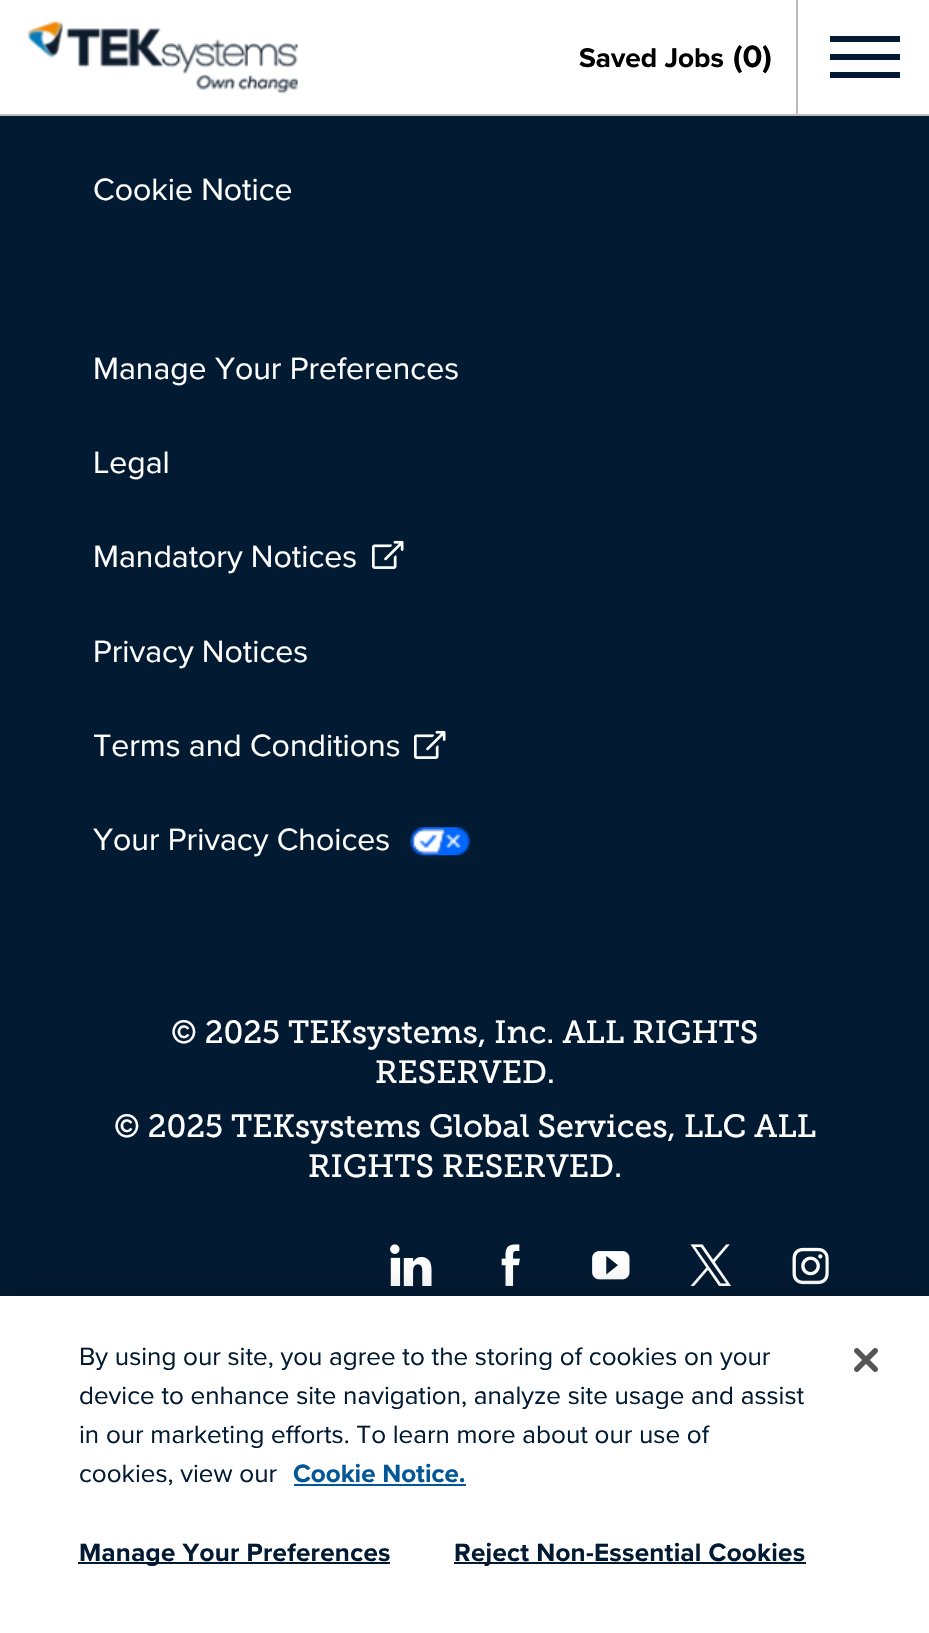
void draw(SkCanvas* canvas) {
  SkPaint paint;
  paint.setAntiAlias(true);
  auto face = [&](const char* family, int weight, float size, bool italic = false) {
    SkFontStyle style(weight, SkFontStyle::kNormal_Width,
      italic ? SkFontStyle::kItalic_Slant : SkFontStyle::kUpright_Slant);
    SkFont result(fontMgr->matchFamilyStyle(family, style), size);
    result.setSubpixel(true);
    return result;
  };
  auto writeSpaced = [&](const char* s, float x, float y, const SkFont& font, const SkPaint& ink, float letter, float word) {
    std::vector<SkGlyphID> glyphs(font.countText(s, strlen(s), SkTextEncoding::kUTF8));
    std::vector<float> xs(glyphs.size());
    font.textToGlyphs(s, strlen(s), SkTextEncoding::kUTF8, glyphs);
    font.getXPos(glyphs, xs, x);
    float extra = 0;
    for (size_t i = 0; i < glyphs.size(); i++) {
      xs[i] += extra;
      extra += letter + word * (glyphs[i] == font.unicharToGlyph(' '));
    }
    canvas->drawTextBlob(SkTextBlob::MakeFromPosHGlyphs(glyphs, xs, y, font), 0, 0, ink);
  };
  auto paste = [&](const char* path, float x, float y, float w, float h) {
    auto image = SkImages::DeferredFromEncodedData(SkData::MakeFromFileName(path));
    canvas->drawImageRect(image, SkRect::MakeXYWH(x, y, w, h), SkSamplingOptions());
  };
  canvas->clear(0xff021a32);
  paint.setColor(0xffffffff);
  canvas->drawRect(SkRect::MakeXYWH(0, 0, 929, 114), paint);
  paint.setColor(0xffbbbbbb);
  canvas->drawRect(SkRect::MakeXYWH(0, 114, 929, 2), paint);
  paste("img/1.png", 27, 21, 271, 73);
  {
    const struct { float x, y, w, h; SkColor color; } items[] = {
      {796, 0, 2, 114, 0xffbbbbbb},
      {830, 36, 70, 6, 0xff021a32},
      {830, 54, 70, 6, 0xff021a32},
      {830, 72, 70, 6, 0xff021a32},
    };
    for (auto [x, y, w, h, color] : items) {
      paint.setColor(color);
      canvas->drawRect(SkRect::MakeXYWH(x, y, w, h), paint);
    }
  }
  paste("img/2.png", 372, 540, 32, 29);
  paste("img/2.png", 414, 730, 32, 29);
  paste("img/3.png", 410, 827, 60, 29);
  paste("img/4.png", 390, 1244, 42, 43);
  paste("img/5.png", 501, 1244, 19, 42);
  paste("img/6.png", 592, 1251, 38, 29);
  paste("img/7.png", 690, 1244, 41, 42);
  paste("img/8.png", 792, 1247, 37, 38);
  paint.setColor(0x33000000);
  paint.setMaskFilter(SkMaskFilter::MakeBlur(kNormal_SkBlurStyle, 18));
  canvas->drawRect(SkRect::MakeXYWH(0, 1296, 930, 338), paint);
  paint.setMaskFilter(nullptr);
  {
    const struct { float x, y, w, h; SkColor color; } items[] = {
      {0, 1296, 929, 337, 0xffffffff},
      {294, 1484, 172, 2, 0xff035797},
      {78, 1562, 312, 2, 0xff021a32},
      {454, 1562, 352, 2, 0xff021a32},
    };
    for (auto [x, y, w, h, color] : items) {
      paint.setColor(color);
      canvas->drawRect(SkRect::MakeXYWH(x, y, w, h), paint);
    }
  }
  paste("img/9.png", 854, 1348, 24, 24);
  auto f0 = face("Proxima Nova", 700, 28);
  paint.setColor(0xff000000);
  canvas->drawString("Saved Jobs", 579, 67, f0, paint);
  auto f1 = face("Proxima Nova", 700, 32);
  canvas->drawString("(0)", 733, 67, f1, paint);
  auto f2 = face("Proxima Nova", 400, 32);
  paint.setColor(0xffffffff);
  {
    const struct { const char* s; float x, y; } items[] = {
      {"Cookie Notice", 93, 200},
      {"Manage Your Preferences", 93, 379},
      {"Legal", 93, 473},
      {"Mandatory Notices", 93, 567},
      {"Privacy Notices", 93, 662},
      {"Terms and Conditions", 93, 756},
      {"Your Privacy Choices", 93, 850},
    };
    for (auto [s, x, y] : items) {
      canvas->drawString(s, x, y, f2, paint);
    }
  }
  auto f3 = face("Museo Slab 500", 400, 32);
  {
    const struct { const char* s; float x, y; } items[] = {
      {"© 2025 TEKsystems, Inc. ALL RIGHTS", 171, 1043},
      {"RESERVED.", 375, 1083},
      {"© 2025 TEKsystems Global Services, LLC ALL", 114, 1137},
      {"RIGHTS RESERVED.", 308, 1177},
    };
    for (auto [s, x, y] : items) {
      canvas->drawString(s, x, y, f3, paint);
    }
  }
  auto f4 = face("Proxima Nova", 400, 26);
  paint.setColor(0xff021a32);
  {
    const struct { const char* s; float x, y; } items[] = {
      {"By using our site, you agree to the storing of cookies on your", 79, 1365},
      {"device to enhance site navigation, analyze site usage and assist", 79, 1404},
      {"in our marketing efforts. To learn more about our use of", 79, 1443},
      {"cookies, view our", 79, 1482},
    };
    for (auto [s, x, y] : items) {
      canvas->drawString(s, x, y, f4, paint);
    }
  }
  auto f5 = face("Proxima Nova", 700, 26);
  paint.setColor(0xff035797);
  canvas->drawString("Cookie Notice.", 293, 1482, f5, paint);
  paint.setColor(0xff021a32);
  writeSpaced("Manage Your Preferences", 79, 1561, f5, paint, 0.25f, 0);
  writeSpaced("Reject Non-Essential Cookies", 454, 1561, f5, paint, 0.25f, 0);
}
